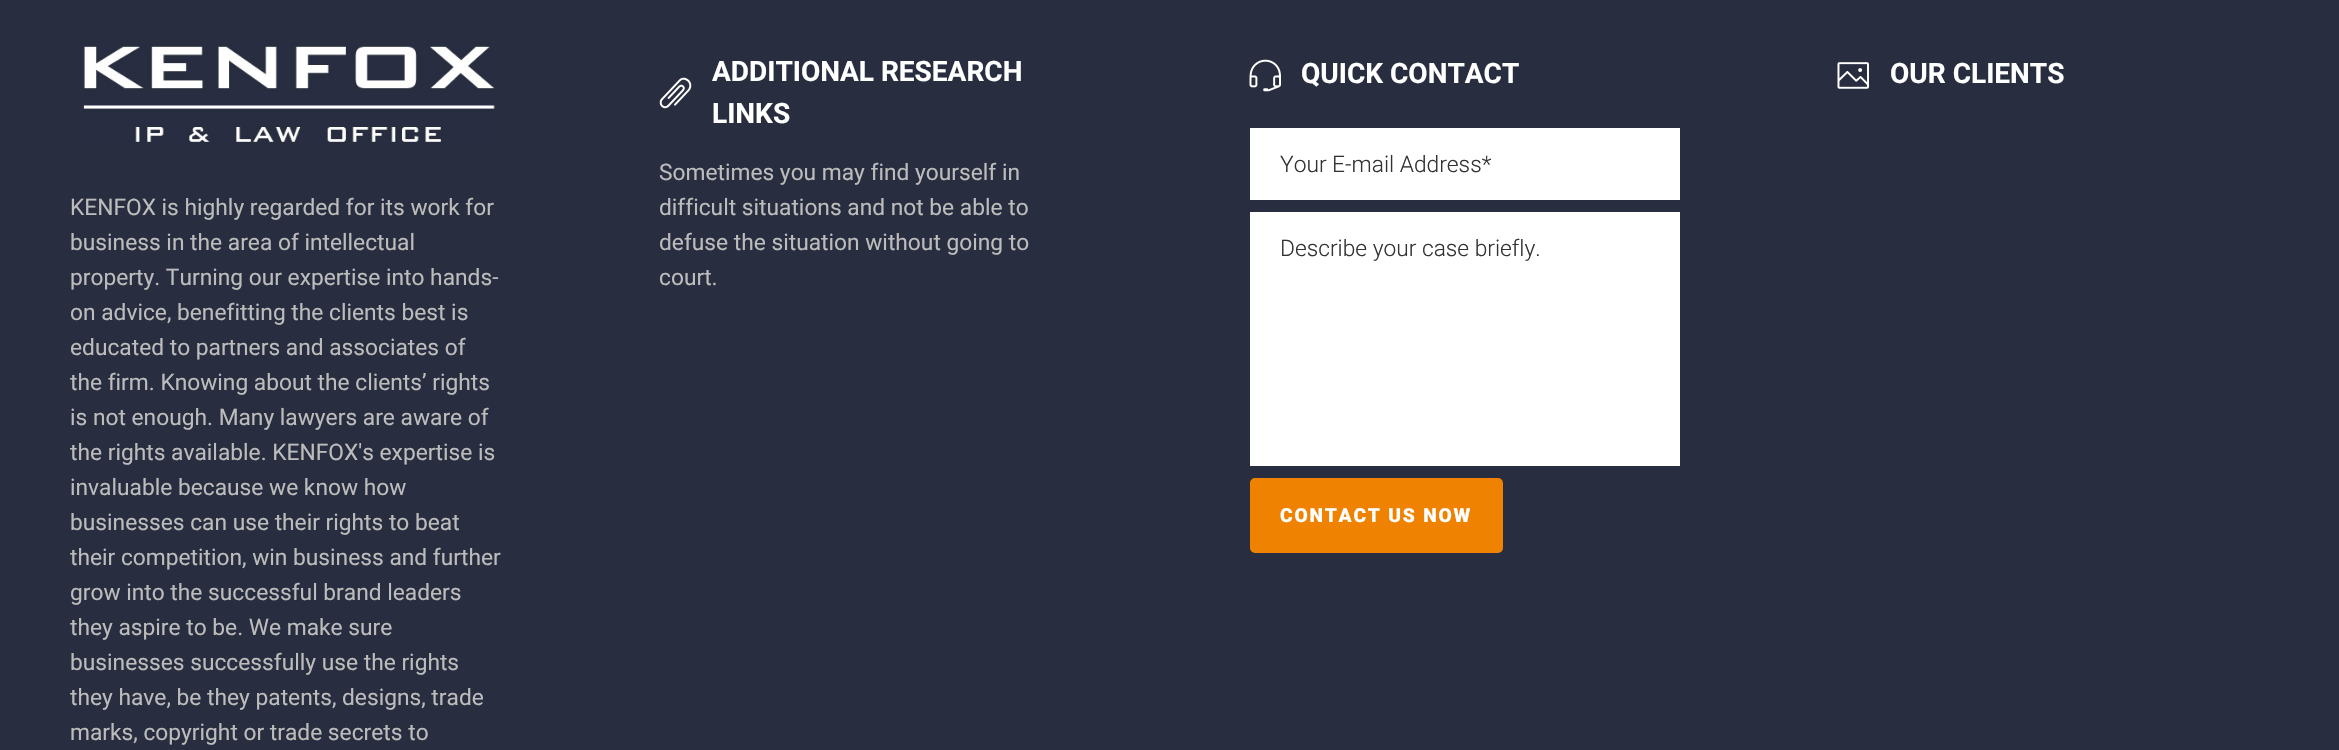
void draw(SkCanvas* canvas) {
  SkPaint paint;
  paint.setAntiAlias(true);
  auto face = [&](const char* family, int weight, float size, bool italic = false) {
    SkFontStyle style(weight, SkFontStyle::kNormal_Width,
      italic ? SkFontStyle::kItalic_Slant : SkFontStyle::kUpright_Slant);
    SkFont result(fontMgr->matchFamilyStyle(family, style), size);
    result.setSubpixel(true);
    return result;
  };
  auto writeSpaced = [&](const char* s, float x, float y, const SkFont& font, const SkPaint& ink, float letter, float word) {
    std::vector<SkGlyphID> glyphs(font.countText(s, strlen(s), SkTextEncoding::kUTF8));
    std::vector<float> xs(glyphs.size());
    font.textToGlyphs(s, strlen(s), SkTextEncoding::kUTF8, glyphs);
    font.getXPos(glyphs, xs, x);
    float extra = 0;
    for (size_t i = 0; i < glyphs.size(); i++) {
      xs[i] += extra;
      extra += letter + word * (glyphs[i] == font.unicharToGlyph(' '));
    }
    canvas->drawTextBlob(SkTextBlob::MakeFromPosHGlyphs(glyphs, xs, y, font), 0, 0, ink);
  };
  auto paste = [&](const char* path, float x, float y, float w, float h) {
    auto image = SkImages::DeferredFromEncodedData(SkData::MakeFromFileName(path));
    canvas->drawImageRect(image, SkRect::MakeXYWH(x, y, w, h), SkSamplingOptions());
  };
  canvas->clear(0xff282e3f);
  paste("img/1.png", 659, 77, 33, 32);
  paste("img/2.png", 1249, 59, 32, 33);
  paint.setColor(0xffffffff);
  canvas->drawRect(SkRect::MakeXYWH(1250, 128, 430, 72), paint);
  canvas->drawRect(SkRect::MakeXYWH(1250, 212, 430, 254), paint);
  paint.setColor(0xffef8200);
  canvas->drawRoundRect(SkRect::MakeXYWH(1251, 479, 251, 73), 4, 4, paint);
  paint.setStroke(true);
  paint.setStrokeWidth(2);
  canvas->drawRoundRect(SkRect::MakeXYWH(1251, 479, 251, 73), 4, 4, paint);
  paste("img/3.png", 1837, 62, 32, 27);
  paste("img/4.png", 83, 43, 412, 104);
  auto f0 = face("Roboto", 700, 28);
  paint.setStroke(false);
  paint.setColor(0xffffffff);
  canvas->drawString("ADDITIONAL RESEARCH", 712, 81, f0, paint);
  canvas->drawString("LINKS", 712, 123, f0, paint);
  auto f1 = face("Roboto", 400, 22.75f);
  paint.setColor(0xffbcbcbc);
  {
    const struct { const char* s; float x, y; } items[] = {
      {"Sometimes you may find yourself in", 659, 180},
      {"difficult situations and not be able to", 659, 215},
      {"defuse the situation without going to", 659, 250},
      {"court.", 659, 285},
    };
    for (auto [s, x, y] : items) {
      canvas->drawString(s, x, y, f1, paint);
    }
  }
  paint.setColor(0xffffffff);
  canvas->drawString("QUICK CONTACT", 1301, 83, f0, paint);
  auto f2 = face("Roboto", 300, 22.75f);
  paint.setColor(0xff333333);
  canvas->drawString("Your E-mail Address*", 1280, 172, f2, paint);
  canvas->drawString("Describe your case briefly.", 1280, 256, f2, paint);
  auto f3 = face("Roboto", 900, 19.25f);
  paint.setColor(0xffffffff);
  writeSpaced("CONTACT US NOW", 1280, 522, f3, paint, 1.75f, 0);
  canvas->drawString("OUR CLIENTS", 1890, 83, f0, paint);
  paint.setColor(0xffbcbcbc);
  {
    const struct { const char* s; float x, y; } items[] = {
      {"KENFOX is highly regarded for its work for", 70, 215},
      {"business in the area of intellectual", 70, 250},
      {"property. Turning our expertise into hands-", 70, 285},
      {"on advice, benefitting the clients best is", 70, 320},
      {"educated to partners and associates of", 70, 355},
      {"the firm. Knowing about the clients’ rights", 70, 390},
      {"is not enough. Many lawyers are aware of", 70, 425},
      {"the rights available. KENFOX's expertise is", 70, 460},
      {"invaluable because we know how", 70, 495},
      {"businesses can use their rights to beat", 70, 530},
      {"their competition, win business and further", 70, 565},
      {"grow into the successful brand leaders", 70, 600},
      {"they aspire to be. We make sure", 70, 635},
      {"businesses successfully use the rights", 70, 670},
      {"they have, be they patents, designs, trade", 70, 705},
      {"marks, copyright or trade secrets to", 70, 740},
    };
    for (auto [s, x, y] : items) {
      canvas->drawString(s, x, y, f1, paint);
    }
  }
}
